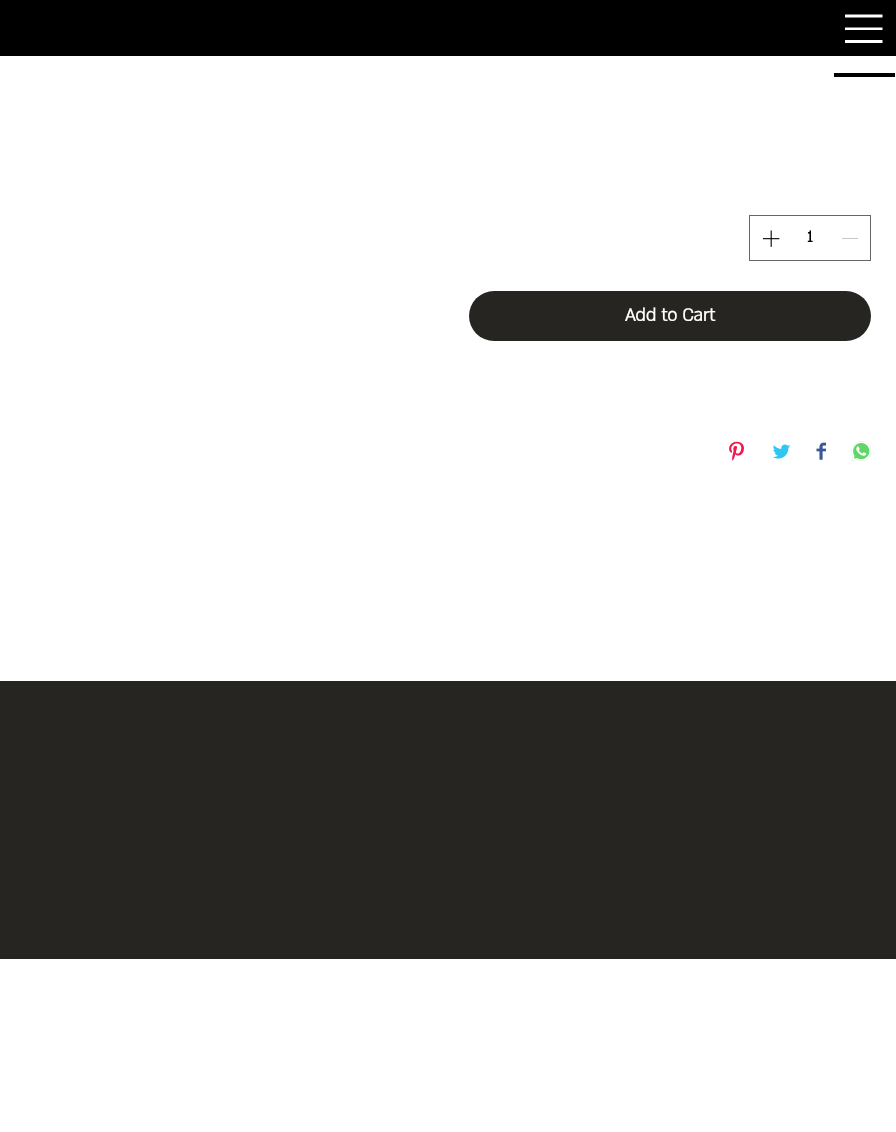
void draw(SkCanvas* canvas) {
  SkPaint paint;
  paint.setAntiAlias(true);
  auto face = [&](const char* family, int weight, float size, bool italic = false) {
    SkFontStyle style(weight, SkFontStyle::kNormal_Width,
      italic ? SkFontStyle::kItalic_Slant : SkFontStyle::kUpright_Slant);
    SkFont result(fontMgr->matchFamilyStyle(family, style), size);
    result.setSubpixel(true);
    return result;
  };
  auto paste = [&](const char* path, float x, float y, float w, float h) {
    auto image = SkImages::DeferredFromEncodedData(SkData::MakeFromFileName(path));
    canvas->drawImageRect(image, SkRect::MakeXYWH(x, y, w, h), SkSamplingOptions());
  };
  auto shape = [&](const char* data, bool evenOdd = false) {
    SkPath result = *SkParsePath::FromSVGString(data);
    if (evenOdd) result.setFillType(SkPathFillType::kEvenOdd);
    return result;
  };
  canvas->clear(0xffffffff);
  paint.setColor(0xff000000);
  canvas->drawRect(SkRect::MakeXYWH(0, 0, 896, 56), paint);
  canvas->save();
  canvas->clipRect(SkRect::MakeXYWH(834, 23, 61, 62));
  canvas->drawPath(shape("M895 35H832V30H895ZM895 56H832V51H895ZM895 77H832V73H895Z", true), paint);
  canvas->restore();
  paint.setColor(0xffffffff);
  canvas->drawPath(shape("M882.5 17.5H845V14.5H882.5ZM882.5 30H845V27.5H882.5ZM882.5 43H845V40H882.5Z", true), paint);
  paint.setStroke(true);
  paint.setStrokeWidth(1);
  paint.setColor(0xff666666);
  canvas->drawRect(SkRect::MakeXYWH(749.5f, 215.5f, 121, 45), paint);
  paste("img/1.png", 762, 230, 18, 17);
  paint.setStroke(false);
  paint.setColor(0xffc7c7c7);
  canvas->drawRect(SkRect::MakeXYWH(842, 238, 16, 1), paint);
  paint.setColor(0xff262522);
  canvas->drawRoundRect(SkRect::MakeXYWH(469, 291, 402, 50), 25, 25, paint);
  paste("img/2.png", 729, 441, 15, 20);
  paste("img/3.png", 773, 444, 18, 15);
  paste("img/4.png", 816, 442, 10, 18);
  paste("img/5.png", 851, 441, 20, 20);
  canvas->drawRect(SkRect::MakeXYWH(0, 681, 896, 278), paint);
  auto f0 = face("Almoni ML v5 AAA", 700, 18);
  paint.setColor(0xff000000);
  canvas->drawString("1", 807, 242, f0, paint);
  auto f1 = face("Almoni ML v5 AAA", 700, 20);
  paint.setColor(0xffffffff);
  canvas->drawString("Add to Cart", 625, 321, f1, paint);
}
